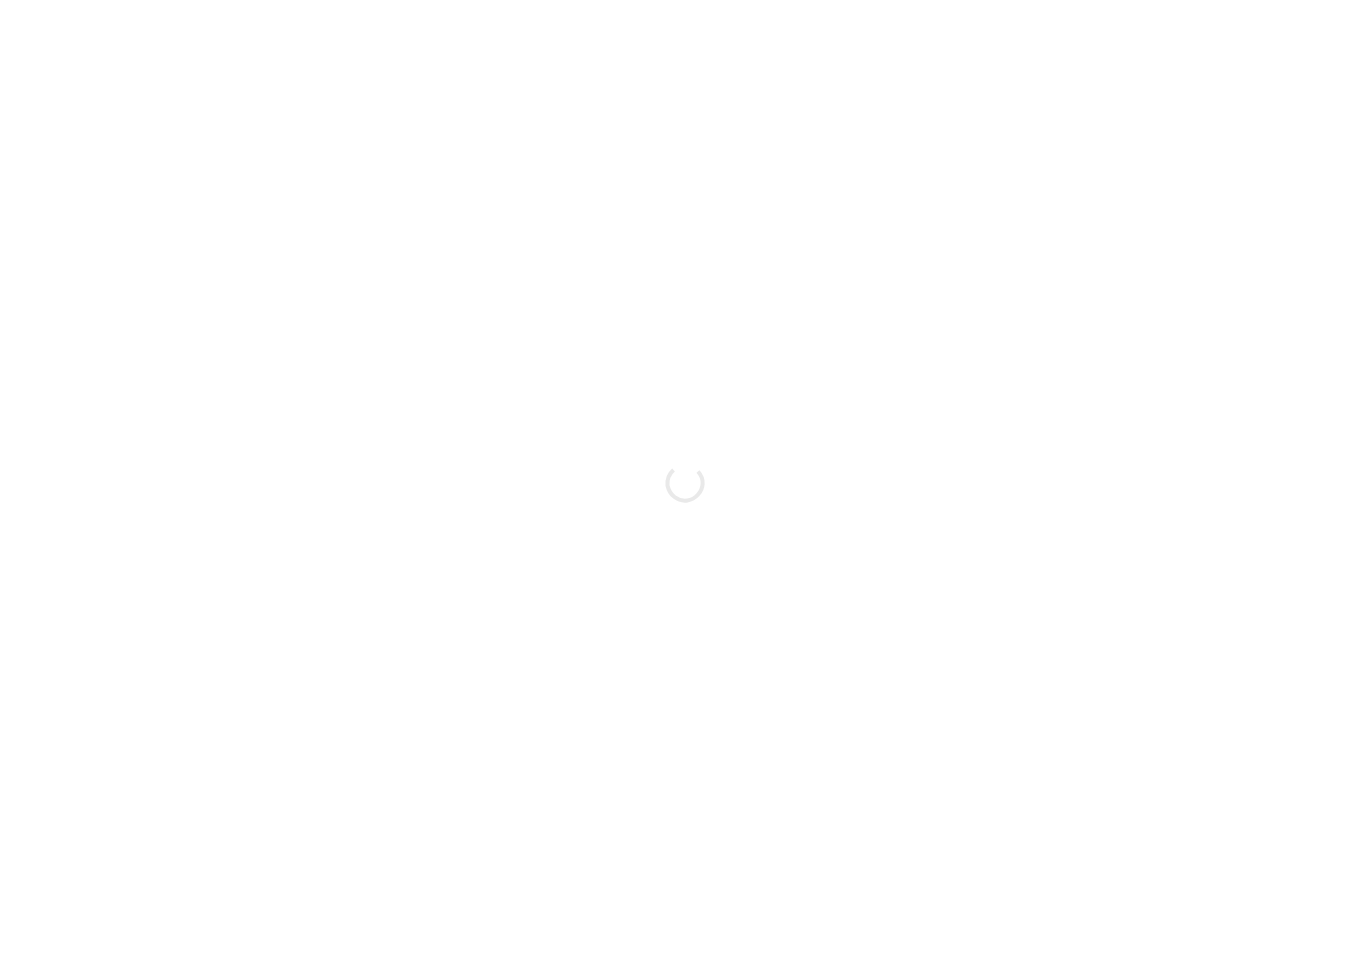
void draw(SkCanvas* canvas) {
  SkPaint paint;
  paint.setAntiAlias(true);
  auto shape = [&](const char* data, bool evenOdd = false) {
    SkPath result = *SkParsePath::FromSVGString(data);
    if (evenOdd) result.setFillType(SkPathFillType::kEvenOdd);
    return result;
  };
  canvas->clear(0xffffffff);
  paint.setStroke(true);
  paint.setStrokeWidth(4);
  paint.setColor(0xffe9e9e9);
  canvas->drawPath(shape("M698 471.5C712 487 691.5 509.5 674.5 497C671 494.5 668.5 490 667.5 485.5C667 479.5 669 474 673.5 470"), paint);
}
